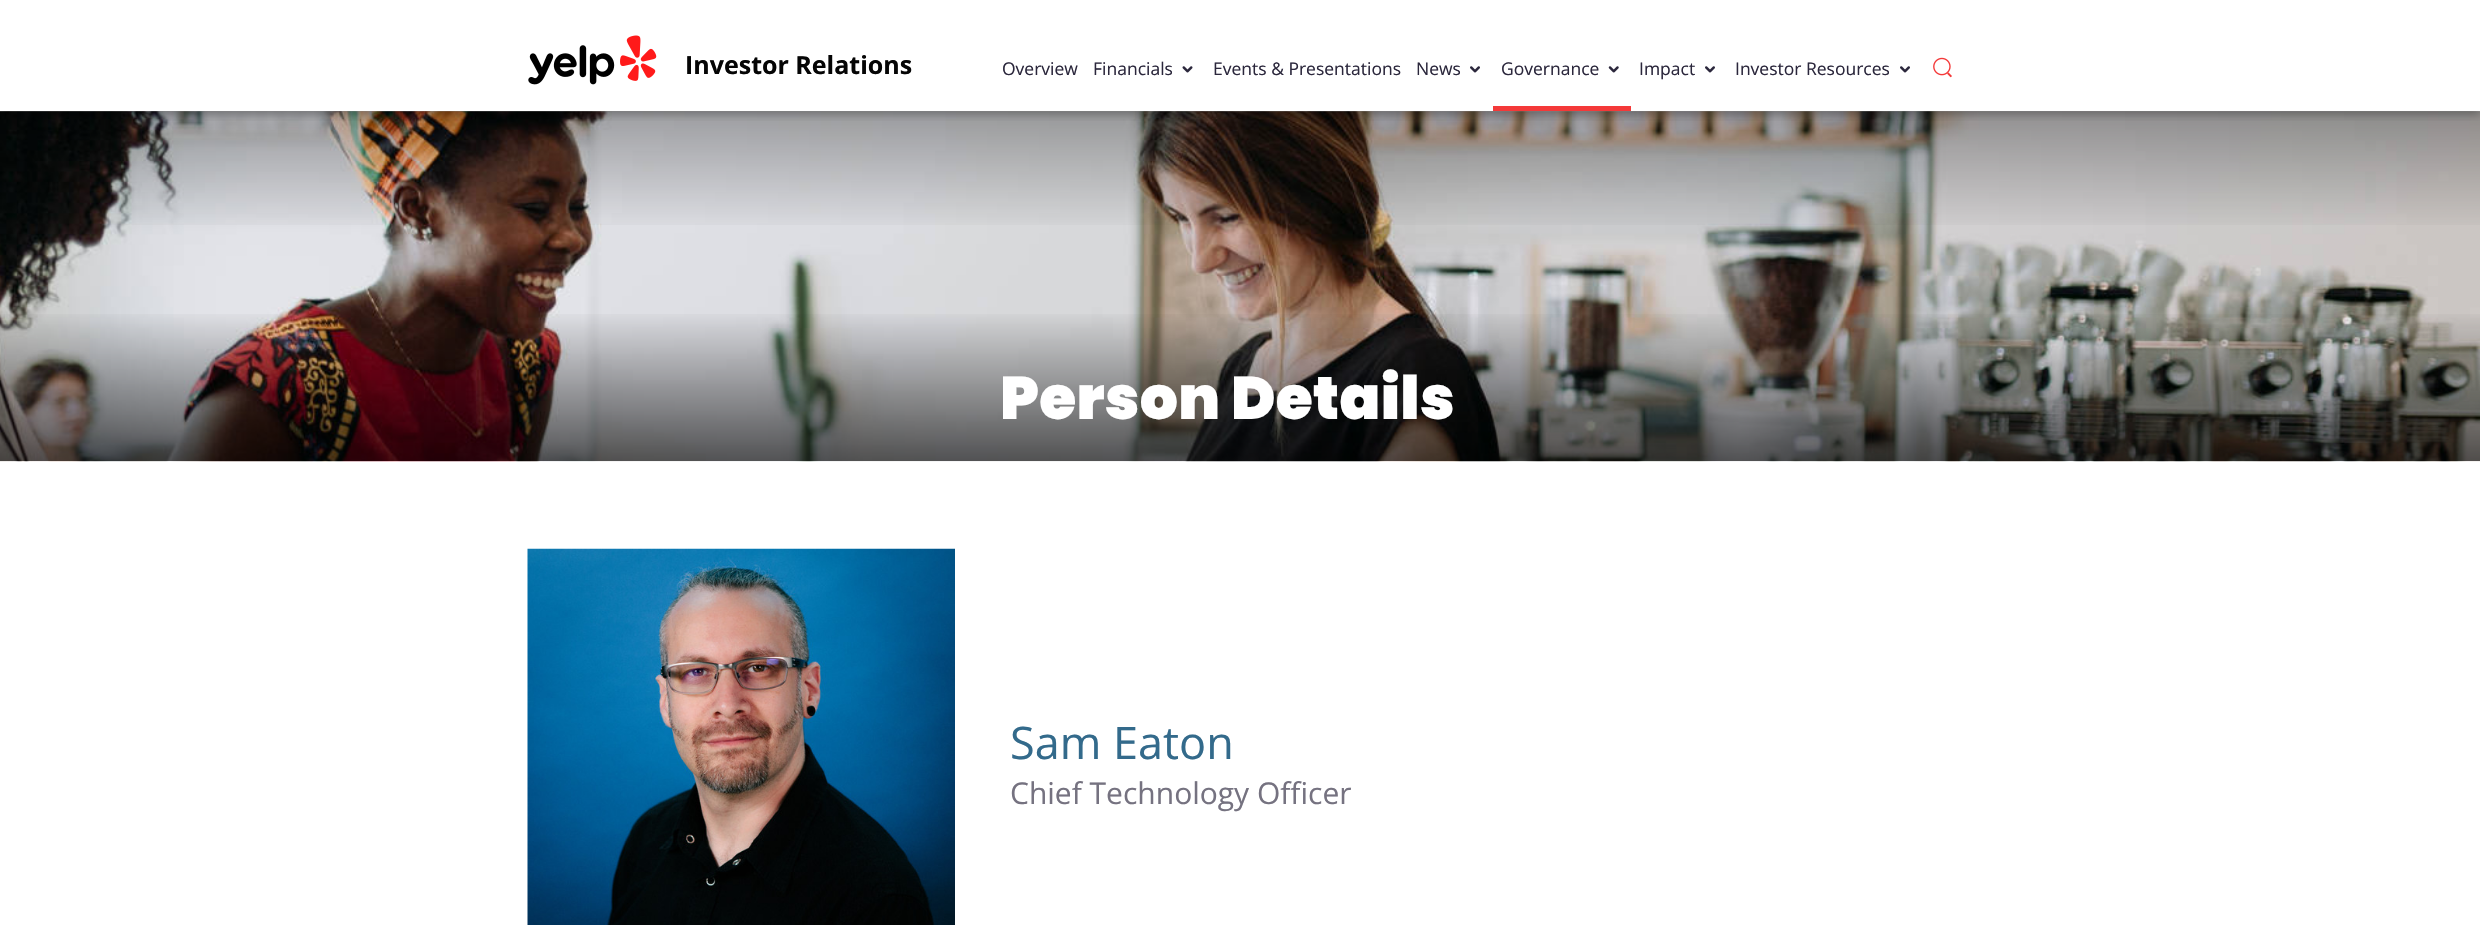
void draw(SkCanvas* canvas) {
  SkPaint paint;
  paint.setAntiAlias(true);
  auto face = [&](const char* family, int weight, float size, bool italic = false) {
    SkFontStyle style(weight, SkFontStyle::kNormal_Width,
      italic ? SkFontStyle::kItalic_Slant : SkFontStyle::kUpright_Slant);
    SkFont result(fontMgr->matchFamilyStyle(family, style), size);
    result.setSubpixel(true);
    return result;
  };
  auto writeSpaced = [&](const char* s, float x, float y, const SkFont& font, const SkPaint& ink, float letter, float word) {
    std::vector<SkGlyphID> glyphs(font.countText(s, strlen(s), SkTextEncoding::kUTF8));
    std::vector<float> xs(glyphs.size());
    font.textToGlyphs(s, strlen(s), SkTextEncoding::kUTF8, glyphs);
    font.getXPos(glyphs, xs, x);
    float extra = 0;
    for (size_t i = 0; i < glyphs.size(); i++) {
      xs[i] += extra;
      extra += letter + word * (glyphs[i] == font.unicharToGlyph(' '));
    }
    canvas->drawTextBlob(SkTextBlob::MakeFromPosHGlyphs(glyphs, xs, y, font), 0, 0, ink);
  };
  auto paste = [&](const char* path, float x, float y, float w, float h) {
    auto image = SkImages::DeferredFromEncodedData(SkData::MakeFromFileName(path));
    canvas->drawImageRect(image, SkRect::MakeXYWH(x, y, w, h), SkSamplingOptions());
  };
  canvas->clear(0xffffffff);
  paste("img/6.png", 0, 111, 2480, 351);
  {
    const SkColor colors[] = {0x00000000, 0x4d000000};
    const float stops[] = {0.69f, 1};
    const SkPoint ends[] = {{1228, 506}, {1228, 111}};
    paint.setShader(SkGradientShader::MakeLinear(ends, colors, stops, 2, SkTileMode::kClamp));
    paint.setAlpha(255);
  }
  canvas->drawRect(SkRect::MakeXYWH(0, 111, 2480, 114), paint);
  canvas->save();
  canvas->clipRect(SkRect::MakeXYWH(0, 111, 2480, 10));
  paint.setShader(nullptr);
  paint.setColor(0x4d000000);
  paint.setMaskFilter(SkMaskFilter::MakeBlur(kNormal_SkBlurStyle, 4.5f));
  canvas->drawRect(SkRect::MakeXYWH(0, 3, 2480, 111), paint);
  paint.setMaskFilter(nullptr);
  canvas->restore();
  paste("img/1.png", 528, 35, 129, 50);
  paste("img/2.png", 1182, 66, 11, 7);
  paste("img/3.png", 1470, 66, 10, 7);
  paint.setColor(0xfff43939);
  canvas->drawRect(SkRect::MakeXYWH(1493, 106, 138, 5), paint);
  paste("img/4.png", 1608, 66, 11, 7);
  paste("img/3.png", 1705, 66, 10, 7);
  paste("img/3.png", 1900, 66, 10, 7);
  paste("img/5.png", 1933, 57, 19, 21);
  {
    const SkColor colors[] = {0x00000000, 0xcc000000};
    const float stops[] = {0.5f, 1};
    const SkPoint ends[] = {{1228, 111}, {1228, 506}};
    paint.setShader(SkGradientShader::MakeLinear(ends, colors, stops, 2, SkTileMode::kClamp));
    paint.setAlpha(255);
  }
  canvas->drawRect(SkRect::MakeXYWH(0, 314, 2480, 147), paint);
  paste("img/7.png", 527, 548, 428, 377);
  auto f0 = face("Open Sans", 700, 25);
  paint.setShader(nullptr);
  paint.setColor(0xff050505);
  canvas->drawString("Investor Relations", 685, 74, f0, paint);
  auto f1 = face("Open Sans", 400, 17.5f);
  paint.setColor(0xff2b273c);
  {
    const struct { const char* s; float x, y; } items[] = {
      {"Overview", 1002, 75},
      {"Financials", 1093, 75},
      {"Events & Presentations", 1213, 75},
      {"News", 1416, 75},
      {"Governance", 1501, 75},
      {"Impact", 1639, 75},
      {"Investor Resources", 1735, 75},
    };
    for (auto [s, x, y] : items) {
      canvas->drawString(s, x, y, f1, paint);
    }
  }
  auto f2 = face("Poppins", 900, 60);
  paint.setColor(0xffffffff);
  writeSpaced("Person Details", 1000, 419, f2, paint, 0.3f, 0);
  auto f3 = face("Open Sans", 400, 45);
  paint.setColor(0xff336a8b);
  canvas->drawString("Sam Eaton", 1010, 759, f3, paint);
  auto f4 = face("Open Sans", 400, 30);
  paint.setColor(0xff757280);
  canvas->drawString("Chief Technology Officer", 1010, 804, f4, paint);
}
